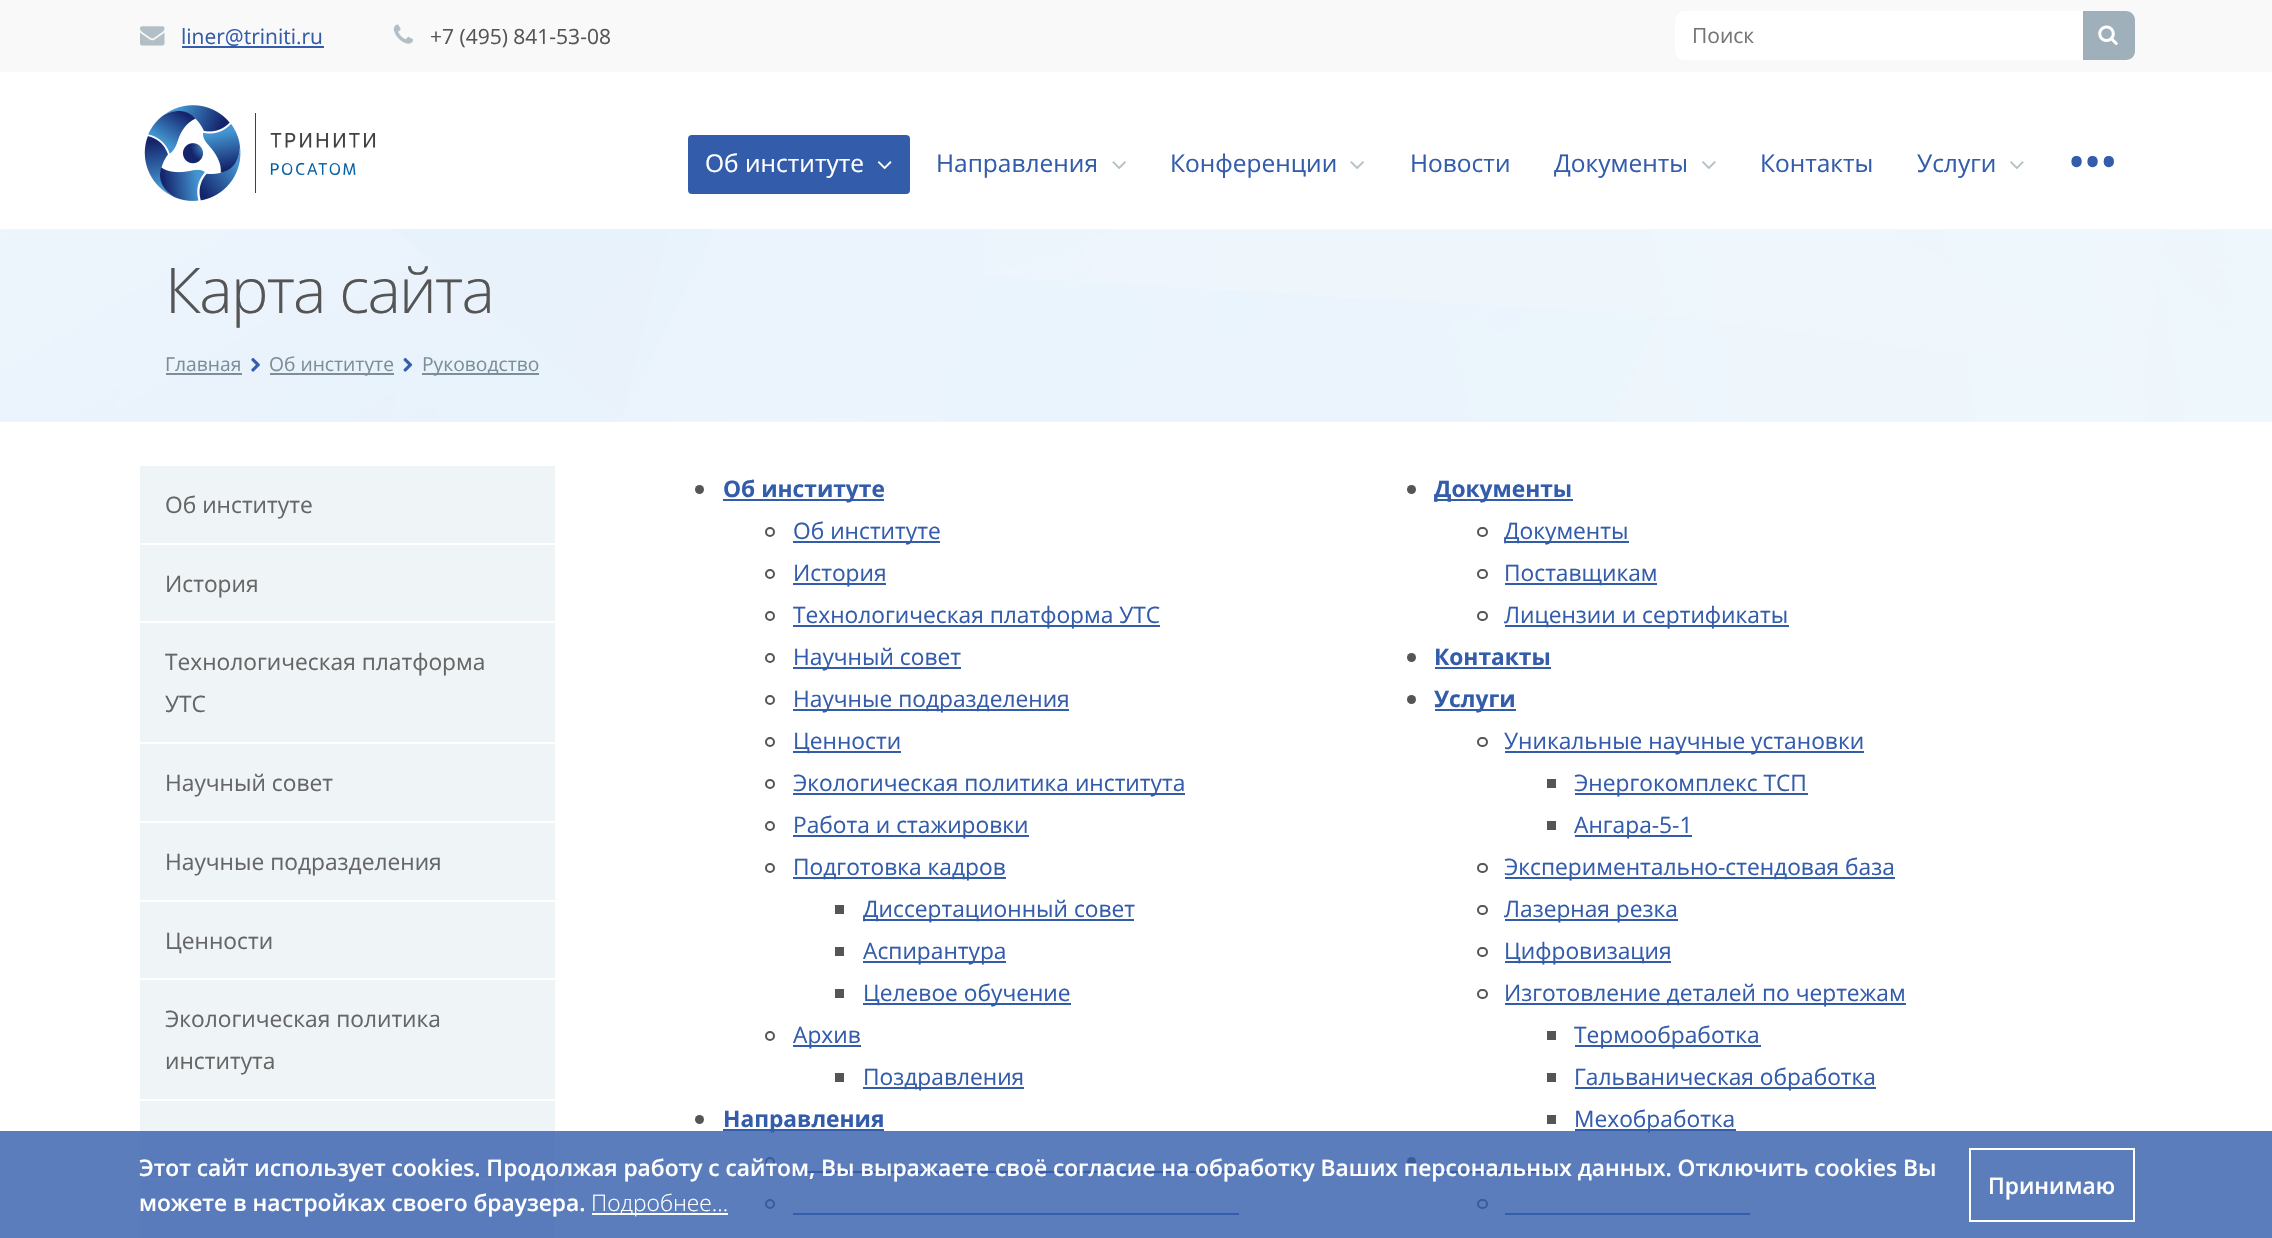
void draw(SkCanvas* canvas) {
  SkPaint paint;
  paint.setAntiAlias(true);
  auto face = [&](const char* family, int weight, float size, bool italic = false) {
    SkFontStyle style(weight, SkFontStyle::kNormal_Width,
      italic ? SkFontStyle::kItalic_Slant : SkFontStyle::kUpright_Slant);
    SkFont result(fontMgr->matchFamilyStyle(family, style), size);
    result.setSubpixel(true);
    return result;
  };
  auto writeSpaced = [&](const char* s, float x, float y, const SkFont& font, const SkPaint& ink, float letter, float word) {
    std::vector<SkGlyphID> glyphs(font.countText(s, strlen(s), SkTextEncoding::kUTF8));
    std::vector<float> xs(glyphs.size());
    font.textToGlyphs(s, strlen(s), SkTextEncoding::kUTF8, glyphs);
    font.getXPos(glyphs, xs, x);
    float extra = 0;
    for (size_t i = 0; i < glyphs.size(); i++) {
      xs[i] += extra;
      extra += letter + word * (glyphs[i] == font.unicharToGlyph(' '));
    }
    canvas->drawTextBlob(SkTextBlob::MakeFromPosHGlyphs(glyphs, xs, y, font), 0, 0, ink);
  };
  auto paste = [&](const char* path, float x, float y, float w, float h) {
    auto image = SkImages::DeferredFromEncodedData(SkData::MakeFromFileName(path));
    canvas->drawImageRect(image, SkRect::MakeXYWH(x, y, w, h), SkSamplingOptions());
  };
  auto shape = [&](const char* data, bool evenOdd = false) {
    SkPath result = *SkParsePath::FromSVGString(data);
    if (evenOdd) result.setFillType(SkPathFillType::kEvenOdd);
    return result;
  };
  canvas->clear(0xffffffff);
  paint.setColor(0xfff9f9f9);
  canvas->drawRect(SkRect::MakeXYWH(0, 0, 2272, 72), paint);
  paste("img/1.png", 140, 26, 25, 20);
  paint.setColor(0xff335cab);
  canvas->drawRect(SkRect::MakeXYWH(182, 46, 142, 2), paint);
  paste("img/2.png", 393, 24, 20, 20);
  paint.setColor(0xffffffff);
  canvas->drawRoundRect(SkRect::MakeXYWH(1675, 11, 460, 49), 9, 9, paint);
  paint.setColor(0xffa0b0ba);
  canvas->drawPath(shape("M2083 11H2126C2131 11 2135 15 2135 20V51C2135 56 2131 60 2126 60H2083Z"), paint);
  paste("img/3.png", 2098, 25, 20, 20);
  paste("img/4.png", 144, 105, 232, 96);
  paint.setColor(0xff335cab);
  canvas->drawRoundRect(SkRect::MakeXYWH(688, 135, 222, 59), 4, 4, paint);
  paste("img/5.png", 877, 161, 15, 9);
  paste("img/6.png", 1112, 161, 14, 8);
  paste("img/6.png", 1350, 161, 14, 8);
  paste("img/7.png", 1702, 161, 14, 8);
  paste("img/7.png", 2010, 161, 14, 8);
  paint.setColor(0xfff8fbfc);
  canvas->drawRect(SkRect::MakeXYWH(0, 229, 2272, 193), paint);
  paste("img/8.png", 0, 229, 2272, 193);
  paint.setColor(0xff7c8e9a);
  canvas->drawRect(SkRect::MakeXYWH(166, 373, 76, 2), paint);
  paste("img/9.png", 251, 358, 9, 14);
  canvas->drawRect(SkRect::MakeXYWH(270, 373, 124, 2), paint);
  paste("img/10.png", 403, 358, 10, 14);
  canvas->drawRect(SkRect::MakeXYWH(422, 373, 117, 2), paint);
  paint.setColor(0xff555555);
  canvas->drawCircle(699.5f, 489.5f, 4.5f, paint);
  paint.setColor(0xff335cab);
  canvas->drawRect(SkRect::MakeXYWH(723, 499, 161, 2), paint);
  paint.setStroke(true);
  paint.setStrokeWidth(2);
  paint.setColor(0xff555555);
  canvas->drawCircle(770, 532, 4, paint);
  paint.setStroke(false);
  paint.setColor(0xff335cab);
  canvas->drawRect(SkRect::MakeXYWH(793, 541, 147, 2), paint);
  paint.setStroke(true);
  paint.setColor(0xff555555);
  canvas->drawCircle(770, 574, 4, paint);
  paint.setStroke(false);
  paint.setColor(0xff335cab);
  canvas->drawRect(SkRect::MakeXYWH(793, 583, 93, 2), paint);
  paint.setStroke(true);
  paint.setColor(0xff555555);
  canvas->drawCircle(770, 616, 4, paint);
  paint.setStroke(false);
  paint.setColor(0xff335cab);
  canvas->drawRect(SkRect::MakeXYWH(793, 625, 367, 2), paint);
  paint.setStroke(true);
  paint.setColor(0xff555555);
  canvas->drawCircle(770, 658, 4, paint);
  paint.setStroke(false);
  paint.setColor(0xff335cab);
  canvas->drawRect(SkRect::MakeXYWH(793, 667, 168, 2), paint);
  paint.setStroke(true);
  paint.setColor(0xff555555);
  canvas->drawCircle(770, 700, 4, paint);
  paint.setStroke(false);
  paint.setColor(0xff335cab);
  canvas->drawRect(SkRect::MakeXYWH(793, 709, 276, 2), paint);
  paint.setStroke(true);
  paint.setColor(0xff555555);
  canvas->drawCircle(770, 742, 4, paint);
  paint.setStroke(false);
  paint.setColor(0xff335cab);
  canvas->drawRect(SkRect::MakeXYWH(793, 751, 108, 2), paint);
  paint.setStroke(true);
  paint.setColor(0xff555555);
  canvas->drawCircle(770, 784, 4, paint);
  paint.setStroke(false);
  paint.setColor(0xff335cab);
  canvas->drawRect(SkRect::MakeXYWH(793, 793, 392, 2), paint);
  paint.setStroke(true);
  paint.setColor(0xff555555);
  canvas->drawCircle(770, 826, 4, paint);
  paint.setStroke(false);
  paint.setColor(0xff335cab);
  canvas->drawRect(SkRect::MakeXYWH(793, 835, 236, 2), paint);
  paint.setStroke(true);
  paint.setColor(0xff555555);
  canvas->drawCircle(770, 868, 4, paint);
  paint.setStroke(false);
  {
    const struct { float x, y, w, h; SkColor color; } items[] = {
      {793, 877, 213, 2, 0xff335cab},
      {835, 905, 9, 9, 0xff555555},
      {863, 919, 271, 2, 0xff335cab},
      {835, 947, 9, 9, 0xff555555},
      {863, 961, 143, 2, 0xff335cab},
      {835, 989, 9, 9, 0xff555555},
      {863, 1003, 208, 2, 0xff335cab},
    };
    for (auto [x, y, w, h, color] : items) {
      paint.setColor(color);
      canvas->drawRect(SkRect::MakeXYWH(x, y, w, h), paint);
    }
  }
  paint.setStroke(true);
  paint.setColor(0xff555555);
  canvas->drawCircle(770, 1036, 4, paint);
  paint.setStroke(false);
  {
    const struct { float x, y, w, h; SkColor color; } items[] = {
      {793, 1045, 68, 2, 0xff335cab},
      {835, 1073, 9, 9, 0xff555555},
      {863, 1087, 161, 2, 0xff335cab},
    };
    for (auto [x, y, w, h, color] : items) {
      paint.setColor(color);
      canvas->drawRect(SkRect::MakeXYWH(x, y, w, h), paint);
    }
  }
  paint.setColor(0xff555555);
  canvas->drawCircle(699.5f, 1119.5f, 4.5f, paint);
  paint.setColor(0xff335cab);
  canvas->drawRect(SkRect::MakeXYWH(723, 1129, 161, 2), paint);
  paint.setStroke(true);
  paint.setColor(0xff555555);
  canvas->drawCircle(770, 1162, 4, paint);
  paint.setStroke(false);
  paint.setColor(0xff335cab);
  canvas->drawRect(SkRect::MakeXYWH(793, 1171, 467, 2), paint);
  paint.setStroke(true);
  paint.setColor(0xff555555);
  canvas->drawCircle(770, 1204, 4, paint);
  paint.setStroke(false);
  paint.setColor(0xff335cab);
  canvas->drawRect(SkRect::MakeXYWH(793, 1213, 446, 2), paint);
  paint.setColor(0xff555555);
  canvas->drawCircle(1411.5f, 489.5f, 4.5f, paint);
  paint.setColor(0xff335cab);
  canvas->drawRect(SkRect::MakeXYWH(1435, 499, 138, 2), paint);
  paint.setStroke(true);
  paint.setColor(0xff555555);
  canvas->drawRoundRect(SkRect::MakeXYWH(1478, 528, 9, 8), 4, 4, paint);
  paint.setStroke(false);
  paint.setColor(0xff335cab);
  canvas->drawRect(SkRect::MakeXYWH(1505, 541, 124, 2), paint);
  paint.setStroke(true);
  paint.setColor(0xff555555);
  canvas->drawRoundRect(SkRect::MakeXYWH(1478, 570, 9, 8), 4, 4, paint);
  paint.setStroke(false);
  paint.setColor(0xff335cab);
  canvas->drawRect(SkRect::MakeXYWH(1505, 583, 152, 2), paint);
  paint.setStroke(true);
  paint.setColor(0xff555555);
  canvas->drawRoundRect(SkRect::MakeXYWH(1478, 612, 9, 8), 4, 4, paint);
  paint.setStroke(false);
  paint.setColor(0xff335cab);
  canvas->drawRect(SkRect::MakeXYWH(1505, 625, 284, 2), paint);
  paint.setColor(0xff555555);
  canvas->drawCircle(1411.5f, 657.5f, 4.5f, paint);
  paint.setColor(0xff335cab);
  canvas->drawRect(SkRect::MakeXYWH(1435, 667, 116, 2), paint);
  paint.setColor(0xff555555);
  canvas->drawCircle(1411.5f, 699.5f, 4.5f, paint);
  paint.setColor(0xff335cab);
  canvas->drawRect(SkRect::MakeXYWH(1435, 709, 81, 2), paint);
  paint.setStroke(true);
  paint.setColor(0xff555555);
  canvas->drawRoundRect(SkRect::MakeXYWH(1478, 738, 9, 8), 4, 4, paint);
  paint.setStroke(false);
  {
    const struct { float x, y, w, h; SkColor color; } items[] = {
      {1505, 751, 359, 2, 0xff335cab},
      {1547, 779, 9, 9, 0xff555555},
      {1575, 793, 233, 2, 0xff335cab},
      {1547, 821, 9, 9, 0xff555555},
      {1575, 835, 117, 2, 0xff335cab},
    };
    for (auto [x, y, w, h, color] : items) {
      paint.setColor(color);
      canvas->drawRect(SkRect::MakeXYWH(x, y, w, h), paint);
    }
  }
  paint.setStroke(true);
  paint.setColor(0xff555555);
  canvas->drawRoundRect(SkRect::MakeXYWH(1478, 864, 9, 8), 4, 4, paint);
  paint.setStroke(false);
  paint.setColor(0xff335cab);
  canvas->drawRect(SkRect::MakeXYWH(1505, 877, 390, 2), paint);
  paint.setStroke(true);
  paint.setColor(0xff555555);
  canvas->drawRoundRect(SkRect::MakeXYWH(1478, 906, 9, 8), 4, 4, paint);
  paint.setStroke(false);
  paint.setColor(0xff335cab);
  canvas->drawRect(SkRect::MakeXYWH(1505, 919, 173, 2), paint);
  paint.setStroke(true);
  paint.setColor(0xff555555);
  canvas->drawRoundRect(SkRect::MakeXYWH(1478, 948, 9, 8), 4, 4, paint);
  paint.setStroke(false);
  paint.setColor(0xff335cab);
  canvas->drawRect(SkRect::MakeXYWH(1505, 961, 166, 2), paint);
  paint.setStroke(true);
  paint.setColor(0xff555555);
  canvas->drawRoundRect(SkRect::MakeXYWH(1478, 990, 9, 8), 4, 4, paint);
  paint.setStroke(false);
  {
    const struct { float x, y, w, h; SkColor color; } items[] = {
      {1505, 1003, 401, 2, 0xff335cab},
      {1547, 1031, 9, 9, 0xff555555},
      {1575, 1045, 186, 2, 0xff335cab},
      {1547, 1073, 9, 9, 0xff555555},
      {1575, 1087, 301, 2, 0xff335cab},
      {1547, 1115, 9, 9, 0xff555555},
      {1575, 1129, 161, 2, 0xff335cab},
    };
    for (auto [x, y, w, h, color] : items) {
      paint.setColor(color);
      canvas->drawRect(SkRect::MakeXYWH(x, y, w, h), paint);
    }
  }
  paint.setColor(0xff555555);
  canvas->drawCircle(1411.5f, 1161.5f, 4.5f, paint);
  paint.setColor(0xff335cab);
  canvas->drawRect(SkRect::MakeXYWH(1435, 1171, 133, 2), paint);
  paint.setStroke(true);
  paint.setColor(0xff555555);
  canvas->drawRoundRect(SkRect::MakeXYWH(1478, 1200, 9, 8), 4, 4, paint);
  paint.setStroke(false);
  {
    const struct { float x, y, w, h; SkColor color; } items[] = {
      {1505, 1213, 245, 2, 0xff335cab},
      {140, 466, 415, 772, 0xffeff5f7},
      {140, 543, 415, 2, 0xffffffff},
      {140, 621, 415, 2, 0xffffffff},
      {140, 742, 415, 2, 0xffffffff},
      {140, 821, 415, 2, 0xffffffff},
      {140, 900, 415, 2, 0xffffffff},
      {140, 978, 415, 2, 0xffffffff},
      {140, 1099, 415, 2, 0xffffffff},
      {140, 1178, 415, 2, 0xffffffff},
    };
    for (auto [x, y, w, h, color] : items) {
      paint.setColor(color);
      canvas->drawRect(SkRect::MakeXYWH(x, y, w, h), paint);
    }
  }
  auto f0 = face("Open Sans", 400, 21);
  paint.setColor(0xff335cab);
  canvas->drawString("liner@triniti.ru", 181, 44, f0, paint);
  paint.setColor(0xff555555);
  canvas->drawString("+7 (495) 841-53-08", 430, 44, f0, paint);
  paint.setColor(0xff757575);
  canvas->drawString("Поиск", 1692, 43, f0, paint);
  auto f1 = face("Open Sans", 400, 24.5f);
  paint.setColor(0xffffffff);
  canvas->drawString("Об институте", 705, 172, f1, paint);
  paint.setColor(0xff335cab);
  {
    const struct { const char* s; float x, y; } items[] = {
      {"Направления", 936, 172},
      {"Конференции", 1170, 172},
      {"Новости", 1410, 172},
      {"Документы", 1554, 172},
      {"Контакты", 1760, 172},
      {"Услуги", 1917, 172},
    };
    for (auto [s, x, y] : items) {
      canvas->drawString(s, x, y, f1, paint);
    }
  }
  auto f2 = face("Open Sans", 400, 88);
  writeSpaced("...", 2065, 166, f2, paint, -7, 0);
  auto f3 = face("Open Sans", 300, 63);
  paint.setColor(0xff555555);
  writeSpaced("Карта сайта", 165, 313, f3, paint, -1.75f, 0);
  auto f4 = face("Open Sans", 400, 19.25f);
  paint.setColor(0xff7c8e9a);
  {
    const struct { const char* s; float x, y; } items[] = {
      {"Главная", 165, 371},
      {"Об институте", 269, 371},
      {"Руководство", 422, 371},
    };
    for (auto [s, x, y] : items) {
      canvas->drawString(s, x, y, f4, paint);
    }
  }
  auto f5 = face("Open Sans", 700, 22.75f);
  paint.setColor(0xff335cab);
  canvas->drawString("Об институте", 723, 497, f5, paint);
  auto f6 = face("Open Sans", 400, 22.75f);
  {
    const struct { const char* s; float x, y; } items[] = {
      {"Об институте", 793, 539},
      {"История", 793, 581},
      {"Технологическая платформа УТС", 793, 623},
      {"Научный совет", 793, 665},
      {"Научные подразделения", 793, 707},
      {"Ценности", 793, 749},
      {"Экологическая политика института", 793, 791},
      {"Работа и стажировки", 793, 833},
      {"Подготовка кадров", 793, 875},
      {"Диссертационный совет", 863, 917},
      {"Аспирантура", 863, 959},
      {"Целевое обучение", 863, 1001},
      {"Архив", 793, 1043},
      {"Поздравления", 863, 1085},
    };
    for (auto [s, x, y] : items) {
      canvas->drawString(s, x, y, f6, paint);
    }
  }
  canvas->drawString("Направления", 723, 1127, f5, paint);
  canvas->drawString("Документы", 1434, 497, f5, paint);
  {
    const struct { const char* s; float x, y; } items[] = {
      {"Документы", 1504, 539},
      {"Поставщикам", 1504, 581},
      {"Лицензии и сертификаты", 1504, 623},
    };
    for (auto [s, x, y] : items) {
      canvas->drawString(s, x, y, f6, paint);
    }
  }
  canvas->drawString("Контакты", 1434, 665, f5, paint);
  canvas->drawString("Услуги", 1434, 707, f5, paint);
  {
    const struct { const char* s; float x, y; } items[] = {
      {"Уникальные научные установки", 1504, 749},
      {"Энергокомплекс ТСП", 1574, 791},
      {"Ангара-5-1", 1574, 833},
      {"Экспериментально-стендовая база", 1504, 875},
      {"Лазерная резка", 1504, 917},
      {"Цифровизация", 1504, 959},
      {"Изготовление деталей по чертежам", 1504, 1001},
      {"Термообработка", 1574, 1043},
      {"Гальваническая обработка", 1574, 1085},
      {"Мехобработка", 1574, 1127},
    };
    for (auto [s, x, y] : items) {
      canvas->drawString(s, x, y, f6, paint);
    }
  }
  paint.setColor(0xcc335cab);
  canvas->drawRect(SkRect::MakeXYWH(0, 1131, 2272, 107), paint);
  auto f7 = face("Open Sans", 600, 22.75f);
  paint.setColor(0xffffffff);
  canvas->drawString("Этот сайт использует cookies. Продолжая работу с сайтом, Вы выражаете своё согласие на обработку Ваших персональных данных. Отключить cookies Вы", 139, 1176, f7, paint);
  canvas->drawString("можете в настройках своего браузера.", 139, 1211, f7, paint);
  canvas->drawRect(SkRect::MakeXYWH(592, 1213, 136, 2), paint);
  auto f8 = face("Open Sans", 300, 22.75f);
  canvas->drawString("Подробнее...", 591, 1211, f8, paint);
  paint.setStroke(true);
  canvas->drawRect(SkRect::MakeXYWH(1970, 1149, 164, 72), paint);
  paint.setStroke(false);
  canvas->drawString("Принимаю", 1988, 1194, f7, paint);
  paint.setColor(0xff666666);
  {
    const struct { const char* s; float x, y; } items[] = {
      {"Об институте", 165, 513},
      {"История", 165, 592},
      {"Технологическая платформа", 165, 670},
      {"УТС", 165, 712},
      {"Научный совет", 165, 791},
      {"Научные подразделения", 165, 870},
      {"Ценности", 165, 949},
      {"Экологическая политика", 165, 1027},
      {"института", 165, 1069},
    };
    for (auto [s, x, y] : items) {
      canvas->drawString(s, x, y, f6, paint);
    }
  }
}
